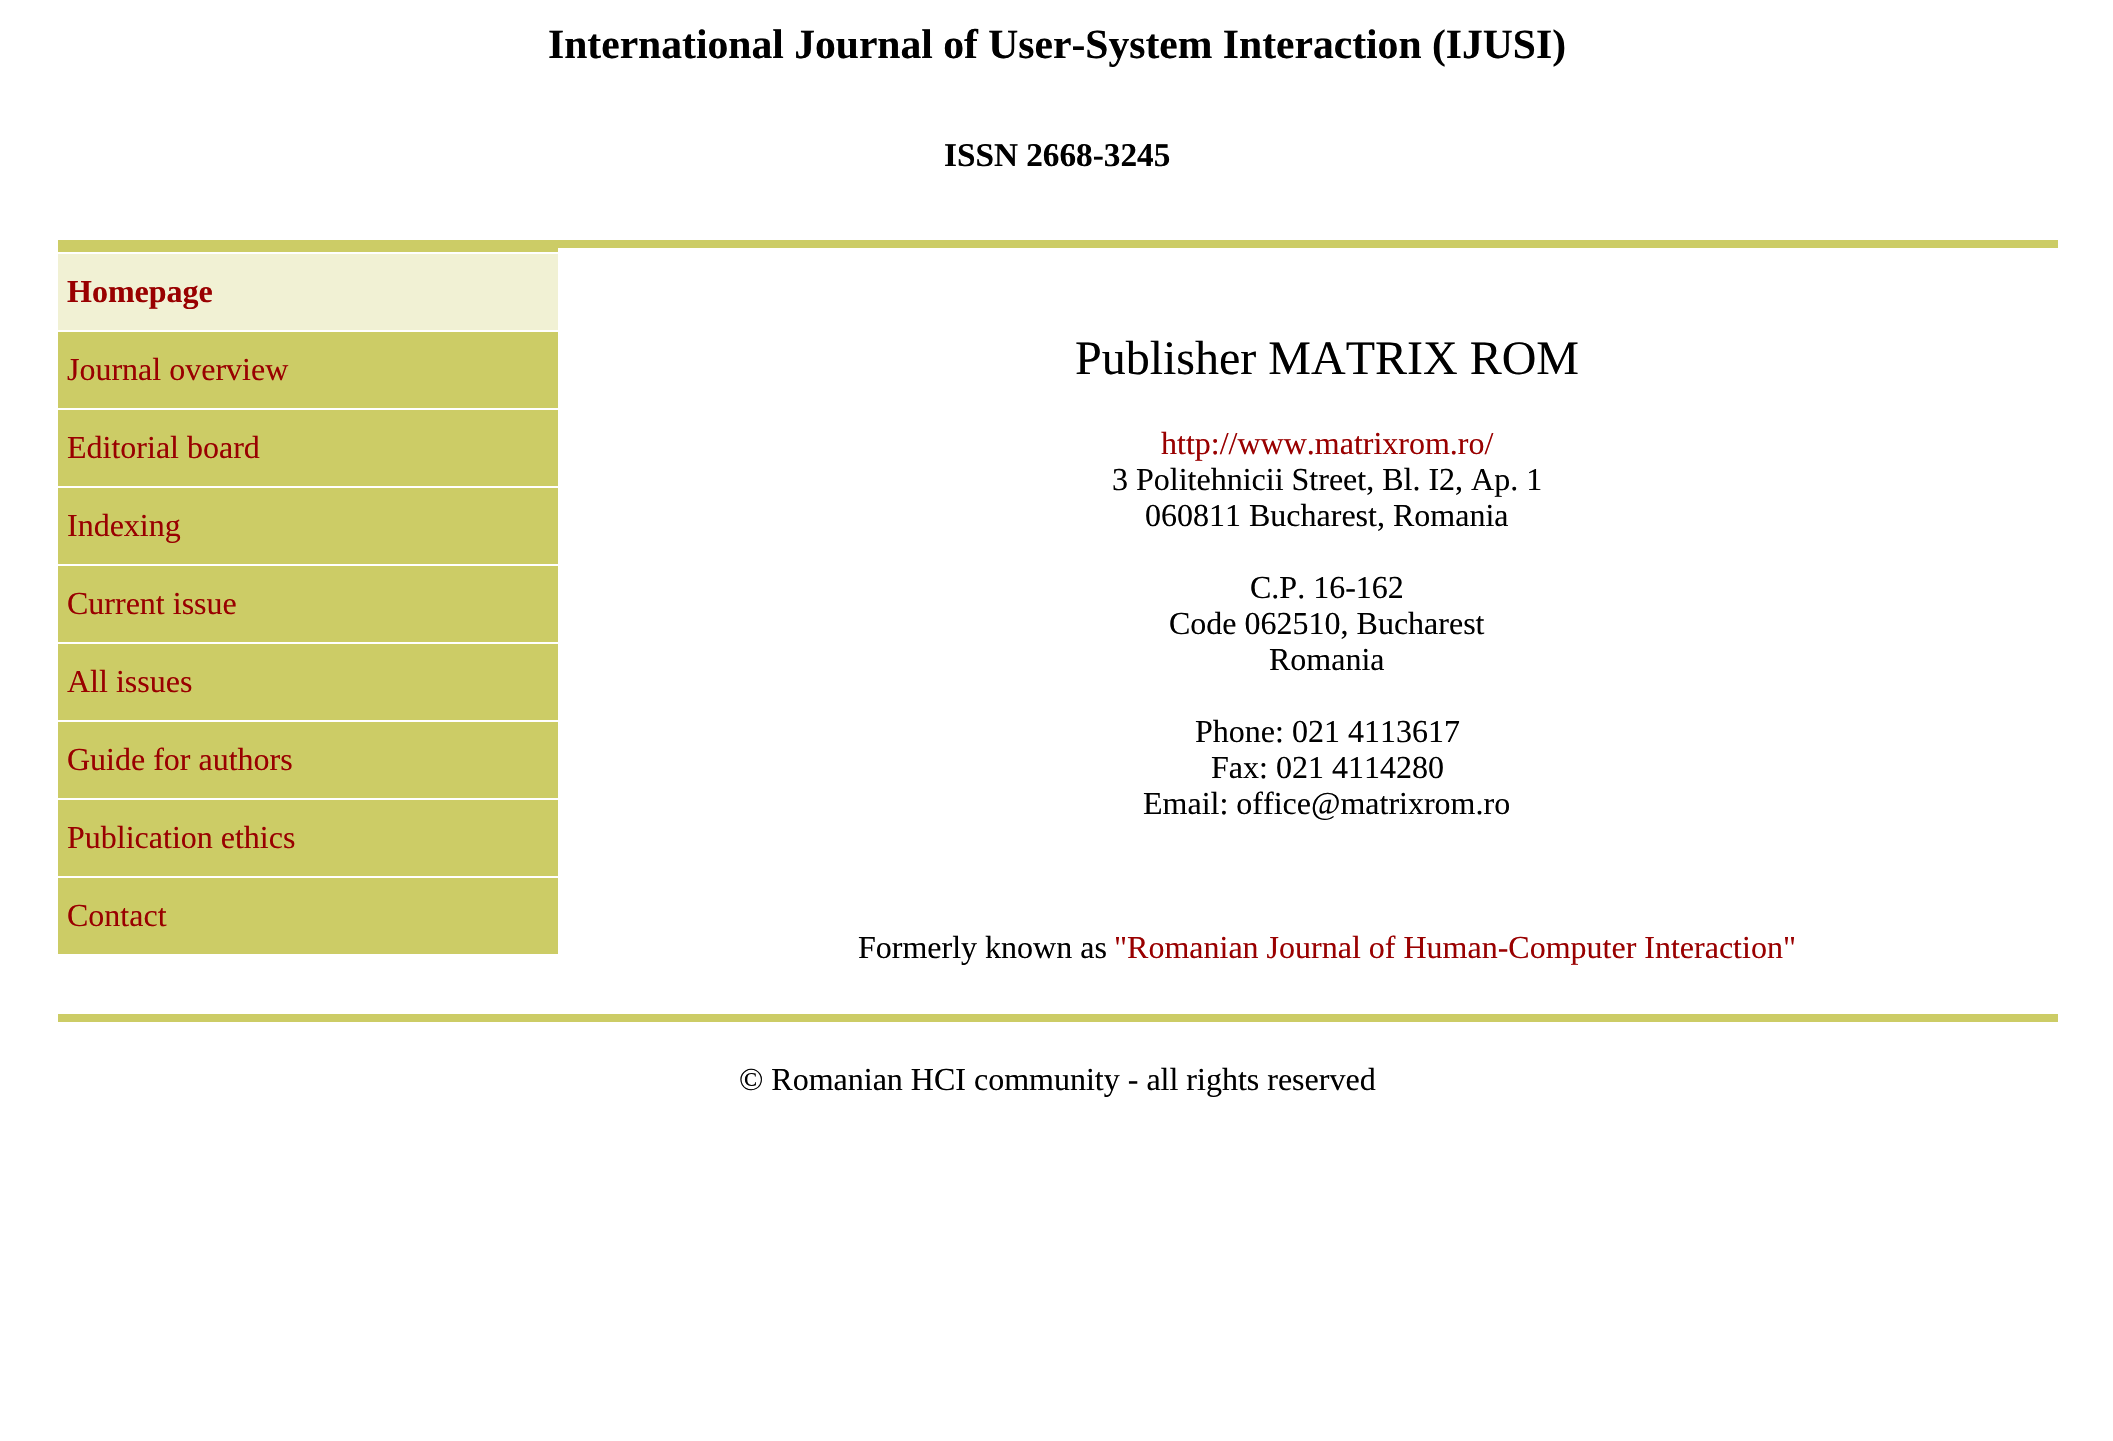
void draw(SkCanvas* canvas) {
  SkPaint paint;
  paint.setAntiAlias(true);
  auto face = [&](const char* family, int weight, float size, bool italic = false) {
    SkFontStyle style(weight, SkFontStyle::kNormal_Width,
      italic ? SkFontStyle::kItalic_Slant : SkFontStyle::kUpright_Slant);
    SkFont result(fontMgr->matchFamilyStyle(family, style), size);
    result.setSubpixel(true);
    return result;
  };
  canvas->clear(0xffffffff);
  {
    const struct { float x, y, w, h; SkColor color; } items[] = {
      {58, 240, 2000, 8, 0xffcccc66},
      {58, 1014, 2000, 8, 0xffcccc66},
      {58, 248, 500, 706, 0xffcccc66},
      {58, 254, 500, 76, 0xfff1f1d4},
      {58, 252, 500, 2, 0xffffffff},
      {58, 330, 500, 2, 0xffffffff},
      {58, 408, 500, 2, 0xffffffff},
      {58, 486, 500, 2, 0xffffffff},
      {58, 564, 500, 2, 0xffffffff},
      {58, 642, 500, 2, 0xffffffff},
      {58, 720, 500, 2, 0xffffffff},
      {58, 798, 500, 2, 0xffffffff},
      {58, 876, 500, 2, 0xffffffff},
    };
    for (auto [x, y, w, h, color] : items) {
      paint.setColor(color);
      canvas->drawRect(SkRect::MakeXYWH(x, y, w, h), paint);
    }
  }
  auto f0 = face("Liberation Serif", 700, 41.6f);
  paint.setColor(0xff000000);
  canvas->drawString("International Journal of User-System Interaction (IJUSI)", 548, 58, f0, paint);
  auto f1 = face("Liberation Serif", 700, 33.25f);
  canvas->drawString("ISSN 2668-3245", 944, 166, f1, paint);
  auto f2 = face("Liberation Serif", 700, 32);
  paint.setColor(0xff990000);
  canvas->drawString("Homepage", 67, 302, f2, paint);
  auto f3 = face("Liberation Serif", 400, 32);
  {
    const struct { const char* s; float x, y; } items[] = {
      {"Journal overview", 67, 380},
      {"Editorial board", 67, 458},
      {"Indexing", 67, 536},
      {"Current issue", 67, 614},
      {"All issues", 67, 692},
      {"Guide for authors", 67, 770},
      {"Publication ethics", 67, 848},
      {"Contact", 67, 926},
    };
    for (auto [s, x, y] : items) {
      canvas->drawString(s, x, y, f3, paint);
    }
  }
  auto f4 = face("Liberation Serif", 400, 48);
  paint.setColor(0xff000000);
  canvas->drawString("Publisher MATRIX ROM", 1075, 374, f4, paint);
  paint.setColor(0xff990000);
  canvas->drawString("http://www.matrixrom.ro/", 1161, 454, f3, paint);
  paint.setColor(0xff000000);
  {
    const struct { const char* s; float x, y; } items[] = {
      {"3 Politehnicii Street, Bl. I2, Ap. 1", 1112, 490},
      {"060811 Bucharest, Romania", 1145, 526},
      {"C.P. 16-162", 1250, 598},
      {"Code 062510, Bucharest", 1169, 634},
      {"Romania", 1269, 670},
      {"Phone: 021 4113617", 1195, 742},
      {"Fax: 021 4114280", 1211, 778},
      {"Email: office@matrixrom.ro", 1143, 814},
      {"Formerly known as", 858, 958},
    };
    for (auto [s, x, y] : items) {
      canvas->drawString(s, x, y, f3, paint);
    }
  }
  paint.setColor(0xff990000);
  canvas->drawString("\"Romanian Journal of Human-Computer Interaction\"", 1114, 958, f3, paint);
  paint.setColor(0xff000000);
  canvas->drawString("© Romanian HCI community - all rights reserved", 739, 1090, f3, paint);
}
